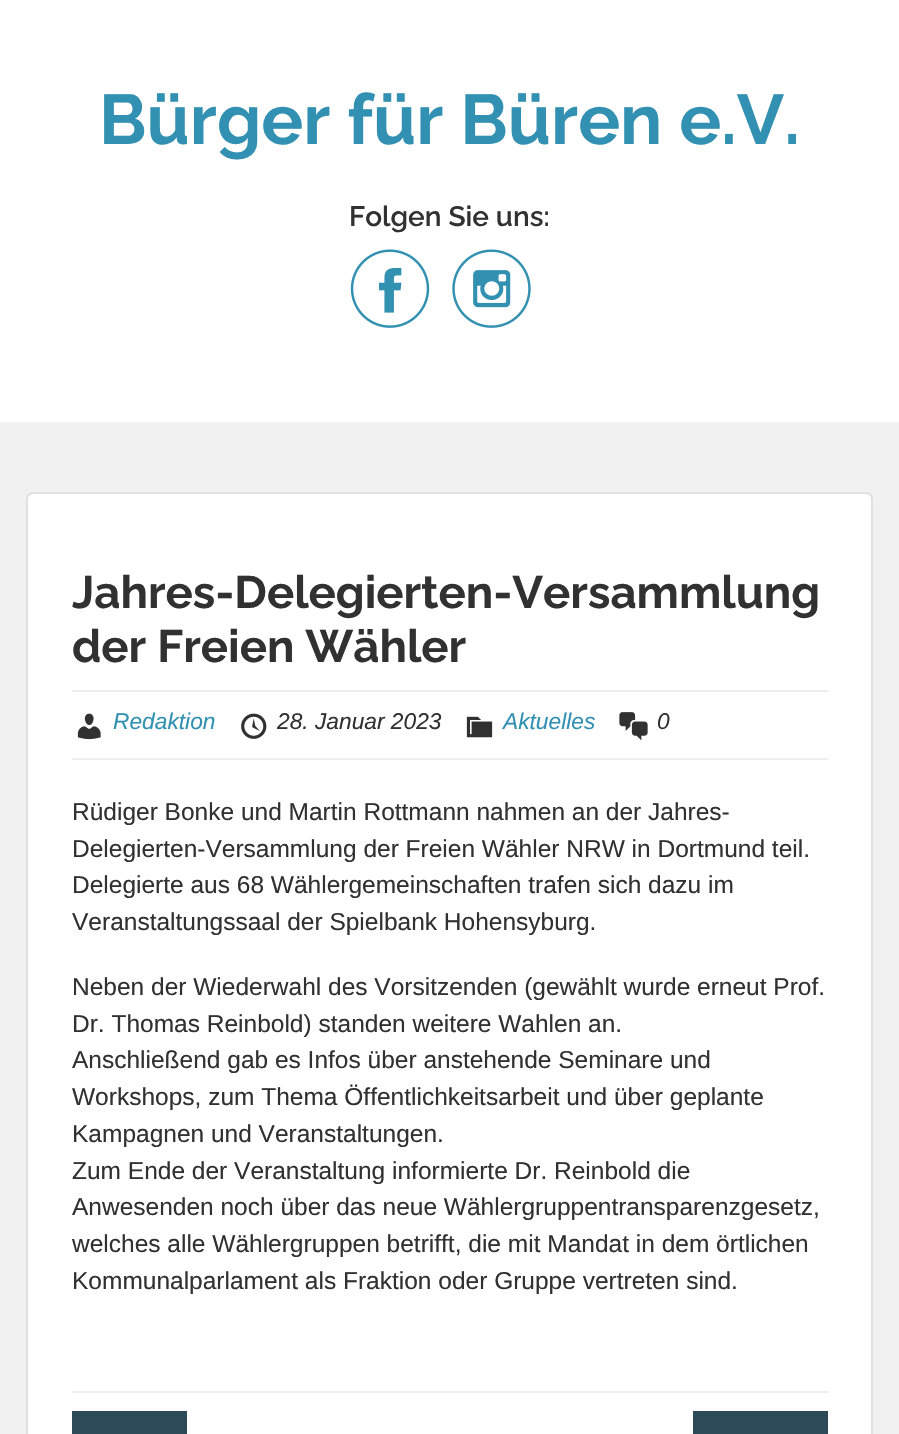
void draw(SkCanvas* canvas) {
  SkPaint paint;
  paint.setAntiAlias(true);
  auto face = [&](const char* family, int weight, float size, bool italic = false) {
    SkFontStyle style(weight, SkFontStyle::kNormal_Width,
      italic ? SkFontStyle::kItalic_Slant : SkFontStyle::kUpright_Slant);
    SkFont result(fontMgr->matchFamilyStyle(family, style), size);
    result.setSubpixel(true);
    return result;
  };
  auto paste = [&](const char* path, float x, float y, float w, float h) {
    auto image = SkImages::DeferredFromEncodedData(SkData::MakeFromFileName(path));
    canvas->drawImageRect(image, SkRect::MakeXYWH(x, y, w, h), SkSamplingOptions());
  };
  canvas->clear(0xfff2f1f2);
  paint.setColor(0xffffffff);
  canvas->drawRect(SkRect::MakeXYWH(0, 0, 899, 422), paint);
  paste("img/1.png", 350, 249, 80, 79);
  paste("img/2.png", 452, 249, 79, 79);
  canvas->drawRoundRect(SkRect::MakeXYWH(26, 492, 847, 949), 7, 7, paint);
  paint.setStroke(true);
  paint.setStrokeWidth(2);
  paint.setColor(0x1f000000);
  canvas->drawRoundRect(SkRect::MakeXYWH(27, 493, 845, 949), 6, 6, paint);
  paint.setStroke(false);
  paint.setColor(0xffeeeeee);
  canvas->drawRect(SkRect::MakeXYWH(72, 690, 756, 2), paint);
  canvas->drawRect(SkRect::MakeXYWH(72, 758, 756, 2), paint);
  paste("img/3.png", 77, 713, 24, 27);
  paste("img/4.png", 241, 713, 26, 26);
  paste("img/5.png", 466, 716, 27, 22);
  paste("img/6.png", 619, 712, 29, 29);
  {
    const struct { float x, y, w, h; SkColor color; } items[] = {
      {72, 1391, 756, 2, 0xffeeeeee},
      {72, 1411, 115, 23, 0xff2c4a58},
      {693, 1411, 135, 23, 0xff2c4a58},
    };
    for (auto [x, y, w, h, color] : items) {
      paint.setColor(color);
      canvas->drawRect(SkRect::MakeXYWH(x, y, w, h), paint);
    }
  }
  auto f0 = face("Raleway", 700, 70);
  paint.setColor(0xff3291b2);
  canvas->drawString("Bürger für Büren e.V.", 99, 144, f0, paint);
  auto f1 = face("Raleway", 600, 28);
  paint.setColor(0xff313131);
  canvas->drawString("Folgen Sie uns:", 349, 226, f1, paint);
  auto f2 = face("Raleway", 700, 45.5f);
  canvas->drawString("Jahres-Delegierten-Versammlung", 72, 608, f2, paint);
  canvas->drawString("der Freien Wähler", 72, 662, f2, paint);
  auto f3 = face("Liberation Sans", 400, 22.75f, true);
  paint.setColor(0xff3291b2);
  canvas->drawString("Redaktion", 113, 729, f3, paint);
  paint.setColor(0xff313131);
  canvas->drawString("28. Januar 2023", 277, 729, f3, paint);
  paint.setColor(0xff3291b2);
  canvas->drawString("Aktuelles", 503, 729, f3, paint);
  paint.setColor(0xff313131);
  canvas->drawString("0", 657, 729, f3, paint);
  auto f4 = face("Liberation Sans", 400, 24.5f);
  {
    const struct { const char* s; float x, y; } items[] = {
      {"Rüdiger Bonke und Martin Rottmann nahmen an der Jahres-", 72, 820},
      {"Delegierten-Versammlung der Freien Wähler NRW in Dortmund teil.", 72, 857},
      {"Delegierte aus 68 Wählergemeinschaften trafen sich dazu im", 72, 893},
      {"Veranstaltungssaal der Spielbank Hohensyburg.", 72, 930},
      {"Neben der Wiederwahl des Vorsitzenden (gewählt wurde erneut Prof.", 72, 995},
      {"Dr. Thomas Reinbold) standen weitere Wahlen an.", 72, 1032},
      {"Anschließend gab es Infos über anstehende Seminare und", 72, 1068},
      {"Workshops, zum Thema Öffentlichkeitsarbeit und über geplante", 72, 1105},
      {"Kampagnen und Veranstaltungen.", 72, 1142},
      {"Zum Ende der Veranstaltung informierte Dr. Reinbold die", 72, 1179},
      {"Anwesenden noch über das neue Wählergruppentransparenzgesetz,", 72, 1215},
      {"welches alle Wählergruppen betrifft, die mit Mandat in dem örtlichen", 72, 1252},
      {"Kommunalparlament als Fraktion oder Gruppe vertreten sind.", 72, 1289},
    };
    for (auto [s, x, y] : items) {
      canvas->drawString(s, x, y, f4, paint);
    }
  }
}
